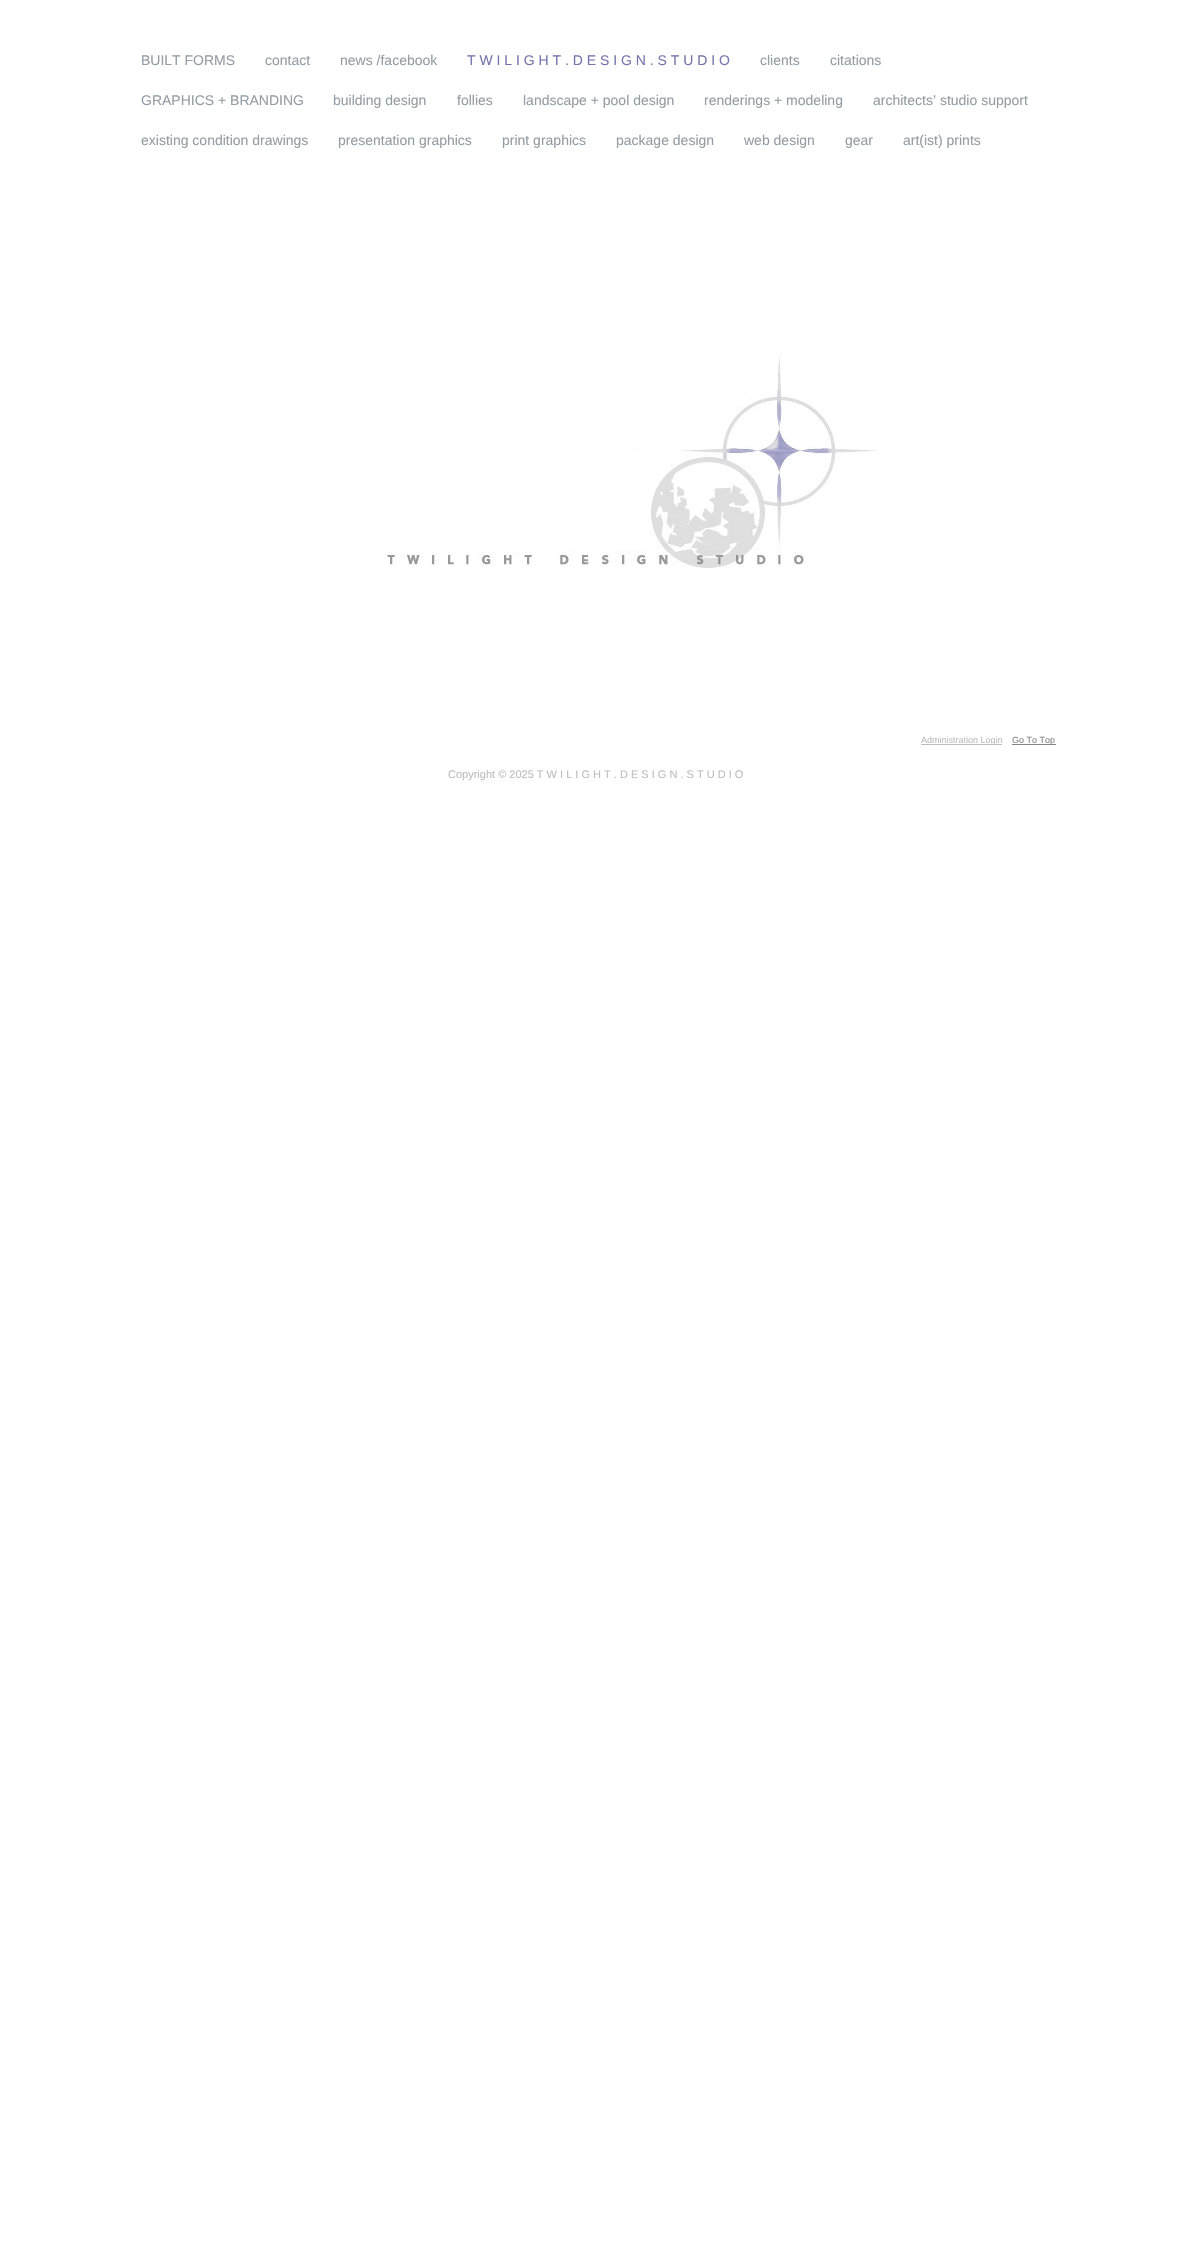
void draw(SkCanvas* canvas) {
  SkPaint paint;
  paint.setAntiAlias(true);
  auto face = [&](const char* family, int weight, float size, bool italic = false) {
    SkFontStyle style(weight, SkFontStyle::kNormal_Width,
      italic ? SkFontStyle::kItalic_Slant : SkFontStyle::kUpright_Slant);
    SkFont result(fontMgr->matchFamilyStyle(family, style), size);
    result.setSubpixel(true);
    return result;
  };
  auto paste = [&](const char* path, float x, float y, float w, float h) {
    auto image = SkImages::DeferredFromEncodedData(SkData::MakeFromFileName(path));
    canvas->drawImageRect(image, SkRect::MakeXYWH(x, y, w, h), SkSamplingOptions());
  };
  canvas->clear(0xffffffff);
  paste("img/1.png", 386, 353, 491, 215);
  paint.setColor(0xffbdbdbd);
  canvas->drawRect(SkRect::MakeXYWH(921, 744, 81, 1), paint);
  paint.setColor(0xff858585);
  canvas->drawRect(SkRect::MakeXYWH(1012, 744, 44, 1), paint);
  auto f0 = face("Liberation Sans", 400, 14);
  paint.setColor(0xff949da3);
  {
    const struct { const char* s; float x, y; } items[] = {
      {"BUILT FORMS", 141, 65},
      {"contact", 265, 65},
      {"news /facebook", 340, 65},
    };
    for (auto [s, x, y] : items) {
      canvas->drawString(s, x, y, f0, paint);
    }
  }
  paint.setColor(0xff7575ad);
  canvas->drawString("T W I L I G H T . D E S I G N . S T U D I O", 467, 65, f0, paint);
  paint.setColor(0xff949da3);
  {
    const struct { const char* s; float x, y; } items[] = {
      {"clients", 760, 65},
      {"citations", 830, 65},
      {"GRAPHICS + BRANDING", 141, 105},
      {"building design", 333, 105},
      {"follies", 457, 105},
      {"landscape + pool design", 523, 105},
      {"renderings + modeling", 704, 105},
      {"architects’ studio support", 873, 105},
      {"existing condition drawings", 141, 145},
      {"presentation graphics", 338, 145},
      {"print graphics", 502, 145},
      {"package design", 616, 145},
      {"web design", 744, 145},
      {"gear", 845, 145},
      {"art(ist) prints", 903, 145},
    };
    for (auto [s, x, y] : items) {
      canvas->drawString(s, x, y, f0, paint);
    }
  }
  auto f1 = face("Liberation Sans", 400, 9);
  paint.setColor(0xffbdbdbd);
  canvas->drawString("Administration Login", 921, 743, f1, paint);
  paint.setColor(0xff858585);
  canvas->drawString("Go To Top", 1012, 743, f1, paint);
  auto f2 = face("Liberation Sans", 400, 11);
  paint.setColor(0xffbdbdbd);
  canvas->drawString("Copyright © 2025 T W I L I G H T . D E S I G N . S T U D I O", 448, 778, f2, paint);
}
